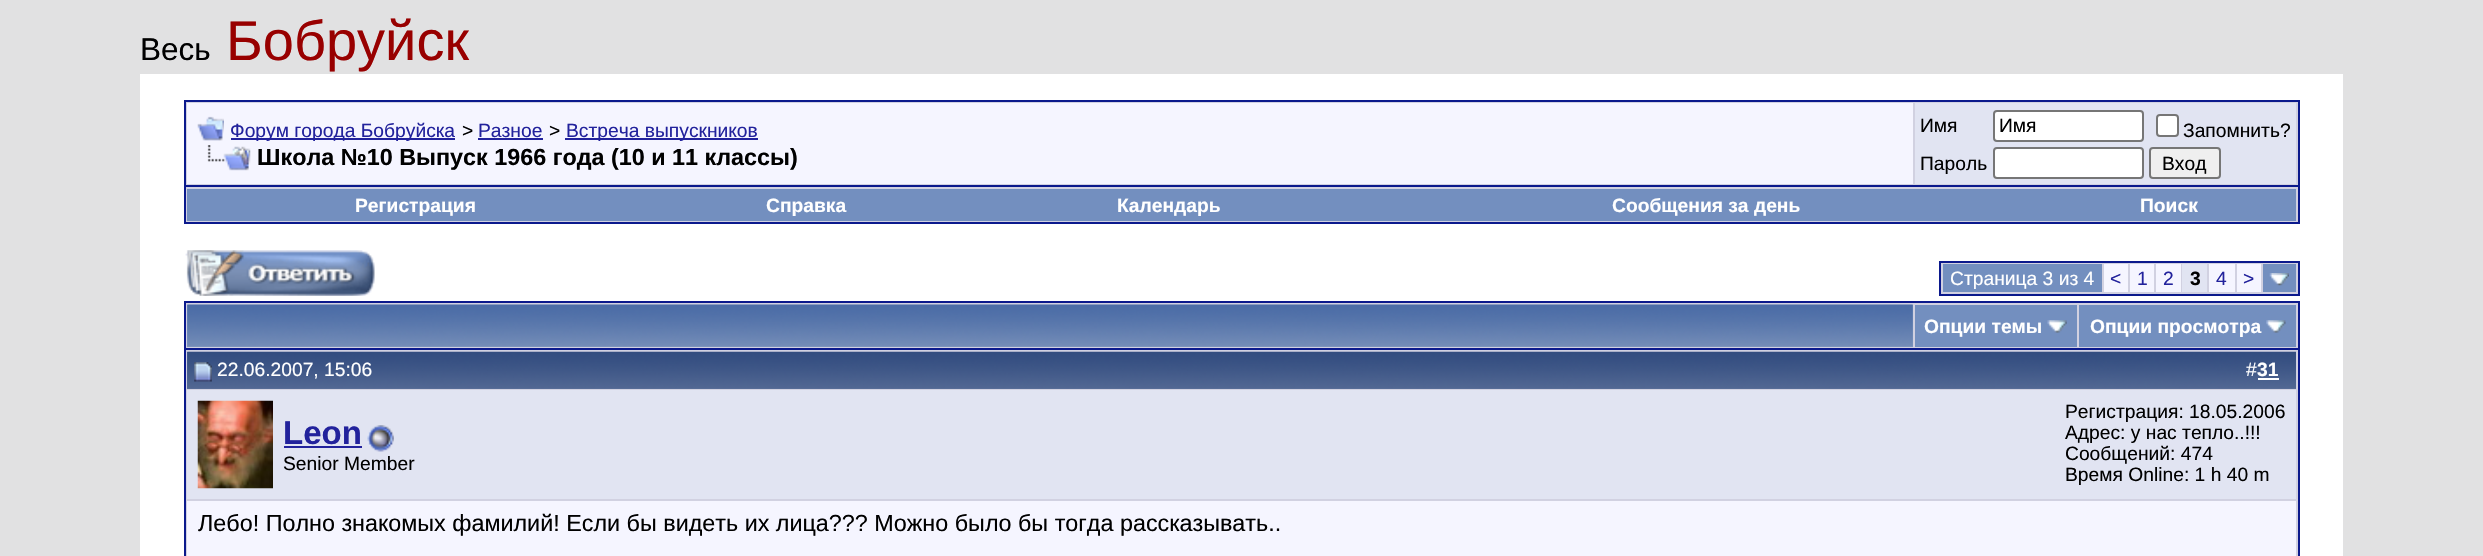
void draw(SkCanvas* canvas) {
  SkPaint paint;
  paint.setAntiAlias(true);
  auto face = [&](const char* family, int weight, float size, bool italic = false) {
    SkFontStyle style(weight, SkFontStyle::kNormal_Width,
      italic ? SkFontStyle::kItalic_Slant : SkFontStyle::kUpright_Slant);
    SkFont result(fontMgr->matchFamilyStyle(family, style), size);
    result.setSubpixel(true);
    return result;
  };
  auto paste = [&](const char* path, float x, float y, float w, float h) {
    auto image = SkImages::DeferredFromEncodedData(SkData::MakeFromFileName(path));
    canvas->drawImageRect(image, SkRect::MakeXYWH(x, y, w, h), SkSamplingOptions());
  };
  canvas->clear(0xffe1e1e2);
  paint.setColor(0xffffffff);
  canvas->drawRect(SkRect::MakeXYWH(140, 74, 2203, 482), paint);
  paint.setColor(0xffd1d1e1);
  canvas->drawRect(SkRect::MakeXYWH(185, 101, 2114, 85), paint);
  paint.setStroke(true);
  paint.setStrokeWidth(2);
  paint.setColor(0xff0b198c);
  canvas->drawRect(SkRect::MakeXYWH(185, 101, 2114, 85), paint);
  paint.setStroke(false);
  paint.setColor(0xfff5f5ff);
  canvas->drawRect(SkRect::MakeXYWH(187, 103, 1726, 81), paint);
  paste("img/1.png", 197, 116, 27, 25);
  {
    const struct { float x, y, w, h; SkColor color; } items[] = {
      {231, 138, 224, 2, 0xff22229c},
      {478, 138, 65, 2, 0xff22229c},
      {565, 138, 193, 2, 0xff22229c},
    };
    for (auto [x, y, w, h, color] : items) {
      paint.setColor(color);
      canvas->drawRect(SkRect::MakeXYWH(x, y, w, h), paint);
    }
  }
  paste("img/2.png", 207, 145, 44, 26);
  paint.setColor(0xffe1e4f2);
  canvas->drawRect(SkRect::MakeXYWH(1915, 103, 381, 81), paint);
  paint.setColor(0xffffffff);
  canvas->drawRoundRect(SkRect::MakeXYWH(1994, 111, 149, 30), 3, 3, paint);
  paint.setStroke(true);
  paint.setColor(0xff767676);
  canvas->drawRoundRect(SkRect::MakeXYWH(1994, 111, 149, 30), 3, 3, paint);
  paint.setStroke(false);
  paint.setColor(0xffffffff);
  canvas->drawRoundRect(SkRect::MakeXYWH(2157, 115, 21, 21), 3, 3, paint);
  paint.setStroke(true);
  paint.setColor(0xff767676);
  canvas->drawRoundRect(SkRect::MakeXYWH(2157, 115, 21, 21), 3, 3, paint);
  paint.setStroke(false);
  paint.setColor(0xffffffff);
  canvas->drawRoundRect(SkRect::MakeXYWH(1994, 148, 149, 30), 3, 3, paint);
  paint.setStroke(true);
  paint.setColor(0xff767676);
  canvas->drawRoundRect(SkRect::MakeXYWH(1994, 148, 149, 30), 3, 3, paint);
  paint.setStroke(false);
  paint.setColor(0xffefefef);
  canvas->drawRoundRect(SkRect::MakeXYWH(2150, 148, 70, 30), 3, 3, paint);
  paint.setStroke(true);
  paint.setColor(0xff767676);
  canvas->drawRoundRect(SkRect::MakeXYWH(2150, 148, 70, 30), 3, 3, paint);
  paint.setStroke(false);
  {
    const struct { float x, y, w, h; SkColor color; } items[] = {
      {186, 187, 2112, 35, 0xffd1d1e1},
      {2298, 187, 2, 37, 0xff0b198c},
      {184, 222, 2116, 2, 0xff0b198c},
      {184, 187, 2, 37, 0xff0b198c},
      {187, 189, 2109, 32, 0xff738fbf},
    };
    for (auto [x, y, w, h, color] : items) {
      paint.setColor(color);
      canvas->drawRect(SkRect::MakeXYWH(x, y, w, h), paint);
    }
  }
  paste("img/3.png", 185, 250, 190, 46);
  paint.setColor(0xffd1d1e1);
  canvas->drawRect(SkRect::MakeXYWH(1940, 262, 359, 33), paint);
  paint.setStroke(true);
  paint.setColor(0xff0b198c);
  canvas->drawRect(SkRect::MakeXYWH(1940, 262, 359, 33), paint);
  paint.setStroke(false);
  {
    const struct { float x, y, w, h; SkColor color; } items[] = {
      {1943, 264, 159, 28, 0xff738fbf},
      {2104, 264, 24, 28, 0xfff5f5ff},
      {2130, 264, 24, 28, 0xfff5f5ff},
      {2156, 264, 25, 28, 0xfff5f5ff},
      {2182, 264, 25, 28, 0xffe1e4f2},
      {2209, 264, 26, 28, 0xfff5f5ff},
      {2237, 264, 24, 28, 0xfff5f5ff},
      {2263, 264, 33, 28, 0xff738fbf},
    };
    for (auto [x, y, w, h, color] : items) {
      paint.setColor(color);
      canvas->drawRect(SkRect::MakeXYWH(x, y, w, h), paint);
    }
  }
  paste("img/4.png", 2269, 273, 20, 13);
  {
    const struct { float x, y, w, h; SkColor color; } items[] = {
      {186, 303, 2112, 45, 0xffd1d1e1},
      {184, 301, 2116, 2, 0xff0b198c},
      {2298, 301, 2, 47, 0xff0b198c},
      {184, 301, 2, 47, 0xff0b198c},
      {187, 305, 1726, 42, 0xff869bbf},
    };
    for (auto [x, y, w, h, color] : items) {
      paint.setColor(color);
      canvas->drawRect(SkRect::MakeXYWH(x, y, w, h), paint);
    }
  }
  paste("img/5.png", 187, 304, 1726, 43);
  paint.setColor(0xff738fbf);
  canvas->drawRect(SkRect::MakeXYWH(1915, 305, 162, 42), paint);
  paste("img/6.png", 2047, 320, 20, 13);
  canvas->drawRect(SkRect::MakeXYWH(2079, 305, 217, 42), paint);
  paste("img/7.png", 2266, 320, 20, 13);
  paint.setColor(0xffd1d1e1);
  canvas->drawRect(SkRect::MakeXYWH(185, 349, 2114, 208), paint);
  paint.setStroke(true);
  paint.setColor(0xff0b198c);
  canvas->drawRect(SkRect::MakeXYWH(185, 349, 2114, 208), paint);
  paint.setStroke(false);
  paint.setColor(0xff5c7099);
  canvas->drawRect(SkRect::MakeXYWH(187, 352, 2109, 37), paint);
  paste("img/8.png", 187, 351, 2109, 38);
  paste("img/9.png", 194, 362, 18, 20);
  paint.setColor(0xffffffff);
  canvas->drawRect(SkRect::MakeXYWH(2258, 378, 21, 2), paint);
  paint.setColor(0xffe1e4f2);
  canvas->drawRect(SkRect::MakeXYWH(187, 390, 2109, 109), paint);
  paste("img/10.png", 197, 400, 76, 89);
  paint.setColor(0xff22229c);
  canvas->drawRect(SkRect::MakeXYWH(284, 446, 78, 2), paint);
  paste("img/11.png", 367, 425, 27, 27);
  paint.setColor(0xfff5f5ff);
  canvas->drawRect(SkRect::MakeXYWH(187, 501, 2109, 55), paint);
  auto f0 = face("Liberation Sans", 400, 31.5f);
  paint.setColor(0xff000000);
  canvas->drawString("Весь", 140, 60, f0, paint);
  auto f1 = face("Liberation Sans", 400, 56);
  paint.setColor(0xff980000);
  canvas->drawString("Бобруйск", 226, 60, f1, paint);
  auto f2 = face("Liberation Sans", 400, 19.25f);
  paint.setColor(0xff22229c);
  canvas->drawString("Форум города Бобруйска", 230, 137, f2, paint);
  paint.setColor(0xff000000);
  canvas->drawString(">", 462, 137, f2, paint);
  paint.setColor(0xff22229c);
  canvas->drawString("Разное", 478, 137, f2, paint);
  paint.setColor(0xff000000);
  canvas->drawString(">", 549, 137, f2, paint);
  paint.setColor(0xff22229c);
  canvas->drawString("Встреча выпускников", 566, 137, f2, paint);
  auto f3 = face("Liberation Sans", 700, 23.35f);
  paint.setColor(0xff000000);
  canvas->drawString("Школа №10 Выпуск 1966 года (10 и 11 классы)", 257, 165, f3, paint);
  {
    const struct { const char* s; float x, y; } items[] = {
      {"Имя", 1920, 132},
      {"Имя", 1999, 132},
      {"Запомнить?", 2183, 137},
      {"Пароль", 1920, 170},
      {"Вход", 2162, 170},
    };
    for (auto [s, x, y] : items) {
      canvas->drawString(s, x, y, f2, paint);
    }
  }
  auto f4 = face("Liberation Sans", 700, 19.25f);
  paint.setColor(0xffffffff);
  {
    const struct { const char* s; float x, y; } items[] = {
      {"Регистрация", 355, 212},
      {"Справка", 766, 212},
      {"Календарь", 1117, 212},
      {"Сообщения за день", 1612, 212},
      {"Поиск", 2140, 212},
    };
    for (auto [s, x, y] : items) {
      canvas->drawString(s, x, y, f4, paint);
    }
  }
  canvas->drawString("Страница 3 из 4", 1950, 285, f2, paint);
  paint.setColor(0xff22229c);
  {
    const struct { const char* s; float x, y; } items[] = {
      {"<", 2110, 285},
      {"1", 2137, 285},
      {"2", 2163, 285},
    };
    for (auto [s, x, y] : items) {
      canvas->drawString(s, x, y, f2, paint);
    }
  }
  paint.setColor(0xff000000);
  canvas->drawString("3", 2190, 285, f4, paint);
  paint.setColor(0xff22229c);
  canvas->drawString("4", 2216, 285, f2, paint);
  canvas->drawString(">", 2243, 285, f2, paint);
  paint.setColor(0xffffffff);
  canvas->drawString("Опции темы", 1924, 333, f4, paint);
  canvas->drawString("Опции просмотра", 2090, 333, f4, paint);
  canvas->drawString("22.06.2007, 15:06", 217, 376, f2, paint);
  canvas->drawString("#", 2246, 376, f2, paint);
  canvas->drawString("31", 2257, 376, f4, paint);
  auto f5 = face("Liberation Sans", 700, 33);
  paint.setColor(0xff22229c);
  canvas->drawString("Leon", 283, 444, f5, paint);
  paint.setColor(0xff000000);
  {
    const struct { const char* s; float x, y; } items[] = {
      {"Senior Member", 283, 470},
      {"Регистрация: 18.05.2006", 2065, 418},
      {"Адрес: у нас тепло..!!!", 2065, 439},
      {"Сообщений: 474", 2065, 460},
      {"Время Online: 1 h 40 m", 2065, 481},
    };
    for (auto [s, x, y] : items) {
      canvas->drawString(s, x, y, f2, paint);
    }
  }
  auto f6 = face("Liberation Sans", 400, 23.35f);
  canvas->drawString("Лебо! Полно знакомых фамилий! Если бы видеть их лица?\077? Можно было бы тогда рассказывать..", 198, 531, f6, paint);
}
